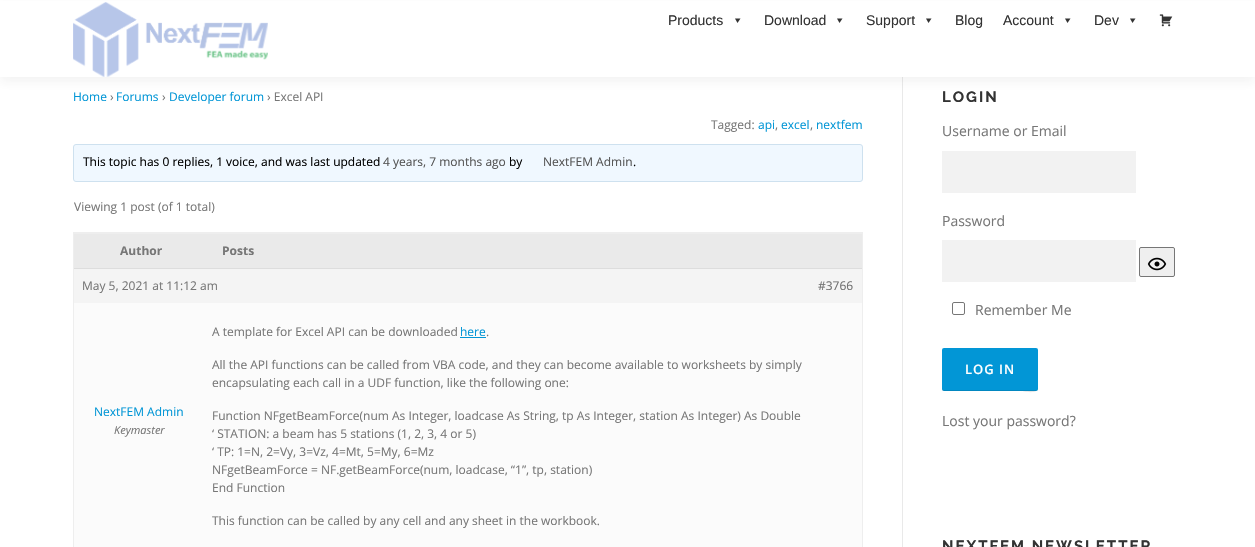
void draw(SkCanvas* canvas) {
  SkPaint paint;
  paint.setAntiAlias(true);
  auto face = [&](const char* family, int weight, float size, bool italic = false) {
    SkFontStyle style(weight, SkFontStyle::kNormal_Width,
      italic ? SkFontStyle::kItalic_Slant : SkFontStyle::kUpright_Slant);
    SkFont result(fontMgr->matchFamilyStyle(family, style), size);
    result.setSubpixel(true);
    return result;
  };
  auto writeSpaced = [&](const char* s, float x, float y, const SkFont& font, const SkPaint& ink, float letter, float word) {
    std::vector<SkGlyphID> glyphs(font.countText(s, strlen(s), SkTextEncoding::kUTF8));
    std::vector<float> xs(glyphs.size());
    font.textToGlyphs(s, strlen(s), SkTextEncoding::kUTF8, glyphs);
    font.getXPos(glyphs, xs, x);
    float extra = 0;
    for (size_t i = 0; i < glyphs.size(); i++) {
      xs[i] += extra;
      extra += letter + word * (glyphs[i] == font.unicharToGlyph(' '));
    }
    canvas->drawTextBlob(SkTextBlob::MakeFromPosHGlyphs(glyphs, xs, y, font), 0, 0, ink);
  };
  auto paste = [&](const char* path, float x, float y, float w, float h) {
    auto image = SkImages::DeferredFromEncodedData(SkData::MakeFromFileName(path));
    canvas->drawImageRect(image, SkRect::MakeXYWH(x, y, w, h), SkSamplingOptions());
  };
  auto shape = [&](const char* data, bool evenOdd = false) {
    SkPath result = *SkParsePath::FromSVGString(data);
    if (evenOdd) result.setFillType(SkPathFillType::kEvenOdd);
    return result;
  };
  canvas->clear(0xffffffff);
  paint.setColor(0xffe9e9e9);
  canvas->drawRect(SkRect::MakeXYWH(902, 77, 1, 470), paint);
  paint.setColor(0x0f323232);
  paint.setMaskFilter(SkMaskFilter::MakeBlur(kNormal_SkBlurStyle, 5));
  canvas->drawRect(SkRect::MakeXYWH(0, 5, 1255, 77), paint);
  paint.setMaskFilter(nullptr);
  paint.setColor(0xffffffff);
  canvas->drawRect(SkRect::MakeXYWH(0, 1, 1255, 76), paint);
  paste("img/1.png", 73, 2, 195, 75);
  paint.setColor(0xff333333);
  canvas->drawPath(shape("M740.5 18.5L737.5 23L735 18.5Z"), paint);
  canvas->drawPath(shape("M842.5 18.5L839.5 23L837 18.5Z"), paint);
  canvas->drawPath(shape("M931.5 18.5L928.5 23L926 18.5Z"), paint);
  canvas->drawPath(shape("M1070.5 18.5L1067.5 23L1065 18.5Z"), paint);
  canvas->drawPath(shape("M1135.5 18.5L1132.5 23L1130 18.5Z"), paint);
  paste("img/2.png", 1159, 14, 14, 13);
  paint.setColor(0xfff0f8ff);
  canvas->drawRoundRect(SkRect::MakeXYWH(73.5f, 144.5f, 789, 37), 2.5f, 2.5f, paint);
  paint.setStroke(true);
  paint.setStrokeWidth(1);
  paint.setColor(0xffcee1ef);
  canvas->drawRoundRect(SkRect::MakeXYWH(73.5f, 144.5f, 789, 37), 2.5f, 2.5f, paint);
  paint.setColor(0xffeeeeee);
  canvas->drawRect(SkRect::MakeXYWH(73.5f, 232.5f, 789, 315), paint);
  paint.setStroke(false);
  {
    const struct { float x, y, w, h; SkColor color; } items[] = {
      {74, 234, 788, 34, 0xffeaeaea},
      {74, 233, 788, 1, 0xffeeeeee},
      {74, 269, 788, 34, 0xfff4f4f4},
      {74, 268, 788, 1, 0xffdddddd},
      {74, 303, 788, 244, 0xfffbfbfb},
      {460, 337, 26, 1, 0xff0296d6},
      {942, 151, 194, 42, 0xfff2f2f2},
      {942, 240, 194, 42, 0xfff2f2f2},
    };
    for (auto [x, y, w, h, color] : items) {
      paint.setColor(color);
      canvas->drawRect(SkRect::MakeXYWH(x, y, w, h), paint);
    }
  }
  paint.setColor(0xffefefef);
  canvas->drawRoundRect(SkRect::MakeXYWH(1139.5f, 247.5f, 35, 29), 1.5f, 1.5f, paint);
  paint.setStroke(true);
  paint.setColor(0xff767676);
  canvas->drawRoundRect(SkRect::MakeXYWH(1139.5f, 247.5f, 35, 29), 1.5f, 1.5f, paint);
  paste("img/3.png", 1147, 257, 20, 14);
  canvas->drawRoundRect(SkRect::MakeXYWH(952.5f, 302.5f, 12, 12), 1.5f, 1.5f, paint);
  paint.setStroke(false);
  paint.setColor(0xff0296d6);
  canvas->drawRoundRect(SkRect::MakeXYWH(942, 348, 96, 43), 2, 2, paint);
  paint.setColor(0x1a000000);
  canvas->drawPath(shape("M942 388C942 389 942 391 944 391H1021C1022 391 1038 395 1038 388C1038 389 1037 390 1036 390H944C943 390 942 389 942 388Z"), paint);
  auto f0 = face("Liberation Sans", 400, 14);
  paint.setColor(0xff333333);
  {
    const struct { const char* s; float x, y; } items[] = {
      {"Products", 668, 25},
      {"Download", 764, 25},
      {"Support", 866, 25},
      {"Blog", 955, 25},
      {"Account", 1003, 25},
      {"Dev", 1094, 25},
    };
    for (auto [s, x, y] : items) {
      canvas->drawString(s, x, y, f0, paint);
    }
  }
  auto f1 = face("Open Sans", 400, 12);
  paint.setColor(0xff0296d6);
  canvas->drawString("Home", 73, 101, f1, paint);
  paint.setColor(0xff777777);
  canvas->drawString("›", 110, 101, f1, paint);
  paint.setColor(0xff0296d6);
  canvas->drawString("Forums", 116, 101, f1, paint);
  paint.setColor(0xff777777);
  canvas->drawString("›", 162, 101, f1, paint);
  paint.setColor(0xff0296d6);
  canvas->drawString("Developer forum", 169, 101, f1, paint);
  paint.setColor(0xff777777);
  canvas->drawString("› Excel API", 267, 101, f1, paint);
  canvas->drawString("Tagged:", 711, 129, f1, paint);
  paint.setColor(0xff0296d6);
  canvas->drawString("api", 758, 129, f1, paint);
  paint.setColor(0xff777777);
  canvas->drawString(",", 775, 129, f1, paint);
  paint.setColor(0xff0296d6);
  canvas->drawString("excel", 781, 129, f1, paint);
  paint.setColor(0xff777777);
  canvas->drawString(",", 810, 129, f1, paint);
  paint.setColor(0xff0296d6);
  canvas->drawString("nextfem", 816, 129, f1, paint);
  paint.setColor(0xff000000);
  canvas->drawString("This topic has 0 replies, 1 voice, and was last updated", 83, 166, f1, paint);
  paint.setColor(0xff555555);
  canvas->drawString("4 years, 7 months ago", 383, 166, f1, paint);
  paint.setColor(0xff000000);
  canvas->drawString("by", 509, 166, f1, paint);
  paint.setColor(0xff555555);
  canvas->drawString("NextFEM Admin", 543, 166, f1, paint);
  paint.setColor(0xff000000);
  canvas->drawString(".", 633, 166, f1, paint);
  paint.setColor(0xff777777);
  canvas->drawString("Viewing 1 post (of 1 total)", 74, 211, f1, paint);
  auto f2 = face("Open Sans", 700, 12);
  canvas->drawString("Author", 120, 255, f2, paint);
  canvas->drawString("Posts", 222, 255, f2, paint);
  canvas->drawString("May 5, 2021 at 11:12 am", 82, 290, f1, paint);
  paint.setColor(0xff707070);
  canvas->drawString("#3766", 818, 290, f1, paint);
  paint.setColor(0xff0296d6);
  canvas->drawString("NextFEM Admin", 94, 416, f1, paint);
  auto f3 = face("Open Sans", 400, 11, true);
  paint.setColor(0xff777777);
  canvas->drawString("Keymaster", 114, 434, f3, paint);
  canvas->drawString("A template for Excel API can be downloaded", 212, 336, f1, paint);
  paint.setColor(0xff0296d6);
  canvas->drawString("here", 460, 336, f1, paint);
  paint.setColor(0xff777777);
  {
    const struct { const char* s; float x, y; } items[] = {
      {".", 486, 336},
      {"All the API functions can be called from VBA code, and they can become available to worksheets by simply", 212, 369},
      {"encapsulating each call in a UDF function, like the following one:", 212, 387},
      {"Function NFgetBeamForce(num As Integer, loadcase As String, tp As Integer, station As Integer) As Double", 212, 420},
      {"‘ STATION: a beam has 5 stations (1, 2, 3, 4 or 5)", 212, 438},
      {"‘ TP: 1=N, 2=Vy, 3=Vz, 4=Mt, 5=My, 6=Mz", 212, 456},
      {"NFgetBeamForce = NF.getBeamForce(num, loadcase, “1”, tp, station)", 212, 474},
      {"End Function", 212, 492},
      {"This function can be called by any cell and any sheet in the workbook.", 212, 525},
    };
    for (auto [s, x, y] : items) {
      canvas->drawString(s, x, y, f1, paint);
    }
  }
  auto f4 = face("Raleway", 700, 15);
  paint.setColor(0xff333333);
  writeSpaced("LOGIN", 942, 102, f4, paint, 2, 0);
  auto f5 = face("Open Sans", 400, 14);
  paint.setColor(0xff777777);
  {
    const struct { const char* s; float x, y; } items[] = {
      {"Username or Email", 942, 136},
      {"Password", 942, 226},
      {"Remember Me", 975, 315},
    };
    for (auto [s, x, y] : items) {
      canvas->drawString(s, x, y, f5, paint);
    }
  }
  auto f6 = face("Open Sans", 600, 13);
  paint.setColor(0xffffffff);
  writeSpaced("LOG IN", 965, 374, f6, paint, 1, 0);
  paint.setColor(0xff777777);
  canvas->drawString("Lost your password?", 942, 426, f5, paint);
  paint.setColor(0xff333333);
  writeSpaced("NEXTFEM NEWSLETTER", 942, 551, f4, paint, 2, 0);
}
